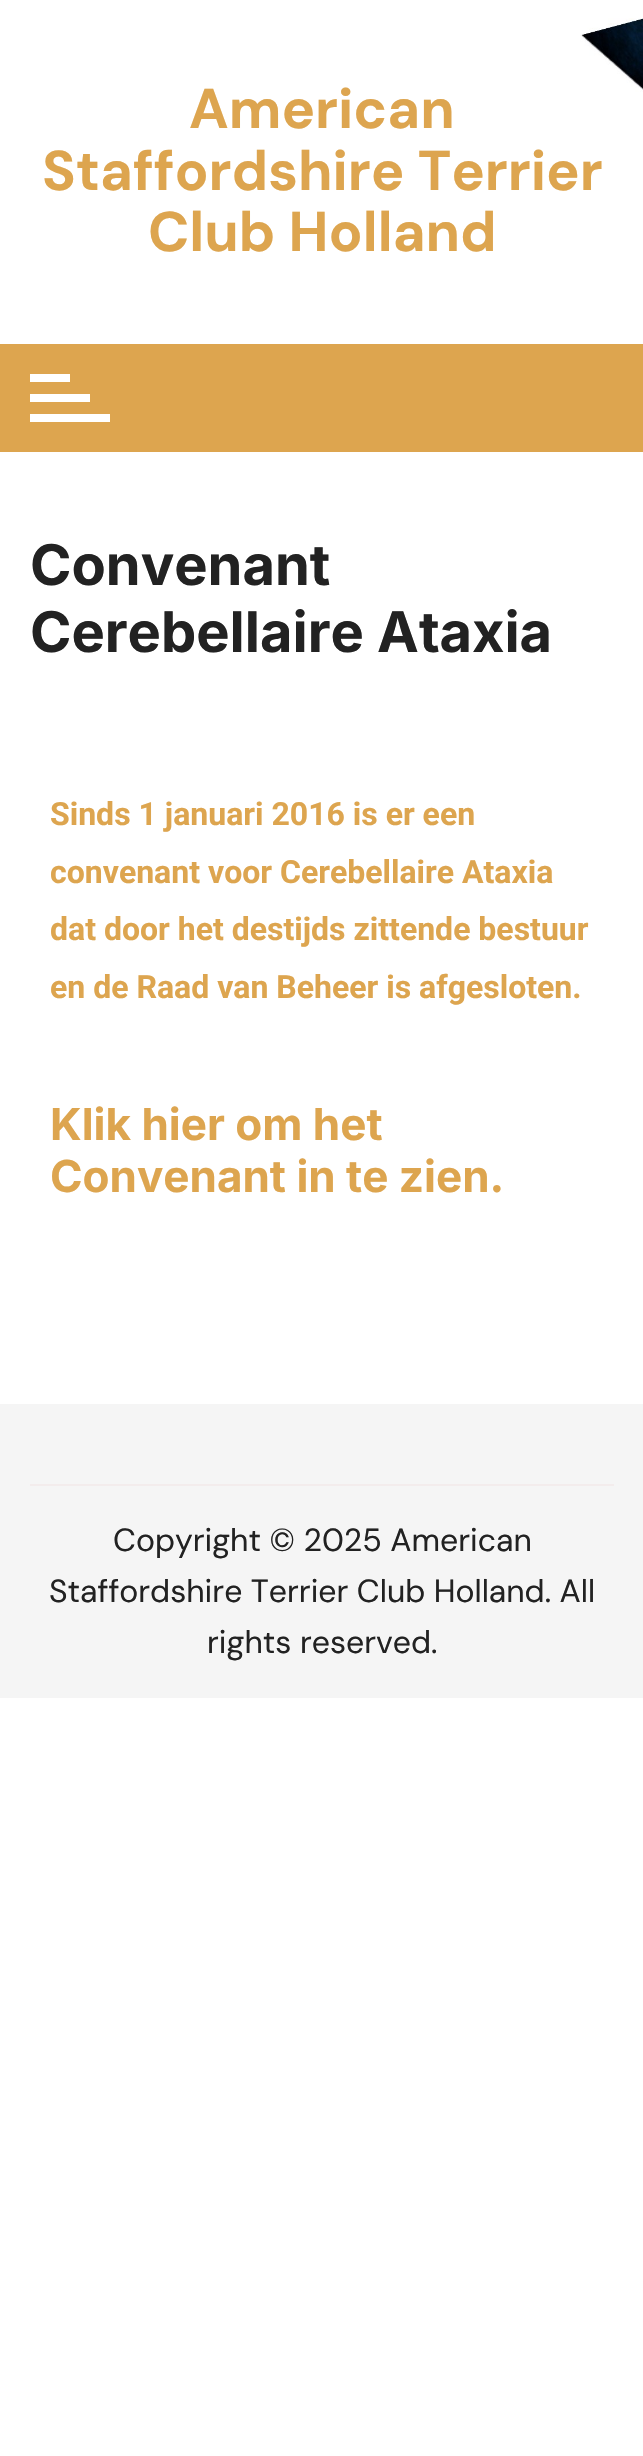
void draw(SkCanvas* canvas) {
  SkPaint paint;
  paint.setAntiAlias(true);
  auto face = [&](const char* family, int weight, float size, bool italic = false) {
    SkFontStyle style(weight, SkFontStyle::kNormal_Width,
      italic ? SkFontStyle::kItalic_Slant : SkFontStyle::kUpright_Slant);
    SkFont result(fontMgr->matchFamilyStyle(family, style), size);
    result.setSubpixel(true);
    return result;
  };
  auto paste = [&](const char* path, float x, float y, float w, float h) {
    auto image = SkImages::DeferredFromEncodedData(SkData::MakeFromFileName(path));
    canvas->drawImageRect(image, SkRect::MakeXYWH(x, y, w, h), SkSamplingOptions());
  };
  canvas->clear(0xffffffff);
  paste("img/1.png", 0, 0, 643, 344);
  {
    const struct { float x, y, w, h; SkColor color; } items[] = {
      {0, 344, 643, 108, 0xffdda54f},
      {30, 374, 40, 8, 0xffffffff},
      {30, 394, 60, 8, 0xffffffff},
      {30, 414, 80, 8, 0xffffffff},
      {0, 1404, 643, 294, 0xfff5f5f5},
      {30, 1484, 584, 2, 0xfff3ecec},
    };
    for (auto [x, y, w, h, color] : items) {
      paint.setColor(color);
      canvas->drawRect(SkRect::MakeXYWH(x, y, w, h), paint);
    }
  }
  auto f0 = face("DM Sans", 700, 56);
  paint.setColor(0xffdda54f);
  {
    const struct { const char* s; float x, y; } items[] = {
      {"American", 189, 128},
      {"Staffordshire Terrier", 42, 190},
      {"Club Holland", 148, 251},
    };
    for (auto [s, x, y] : items) {
      canvas->drawString(s, x, y, f0, paint);
    }
  }
  auto f1 = face("Inter", 700, 56);
  paint.setColor(0xff222222);
  canvas->drawString("Convenant", 30, 585, f1, paint);
  canvas->drawString("Cerebellaire Ataxia", 30, 652, f1, paint);
  auto f2 = face("Roboto", 700, 32);
  paint.setColor(0xffdda54f);
  {
    const struct { const char* s; float x, y; } items[] = {
      {"Sinds 1 januari 2016 is er een", 50, 825},
      {"convenant voor Cerebellaire Ataxia", 50, 883},
      {"dat door het destijds zittende bestuur", 50, 940},
      {"en de Raad van Beheer is afgesloten.", 50, 998},
    };
    for (auto [s, x, y] : items) {
      canvas->drawString(s, x, y, f2, paint);
    }
  }
  auto f3 = face("Inter", 700, 44);
  canvas->drawString("Klik hier om het", 50, 1140, f3, paint);
  canvas->drawString("Convenant in te zien.", 50, 1192, f3, paint);
  auto f4 = face("DM Sans", 400, 32);
  paint.setColor(0xff222222);
  {
    const struct { const char* s; float x, y; } items[] = {
      {"Copyright © 2025 American", 113, 1551},
      {"Staffordshire Terrier Club Holland. All", 49, 1602},
      {"rights reserved.", 207, 1653},
    };
    for (auto [s, x, y] : items) {
      canvas->drawString(s, x, y, f4, paint);
    }
  }
}
